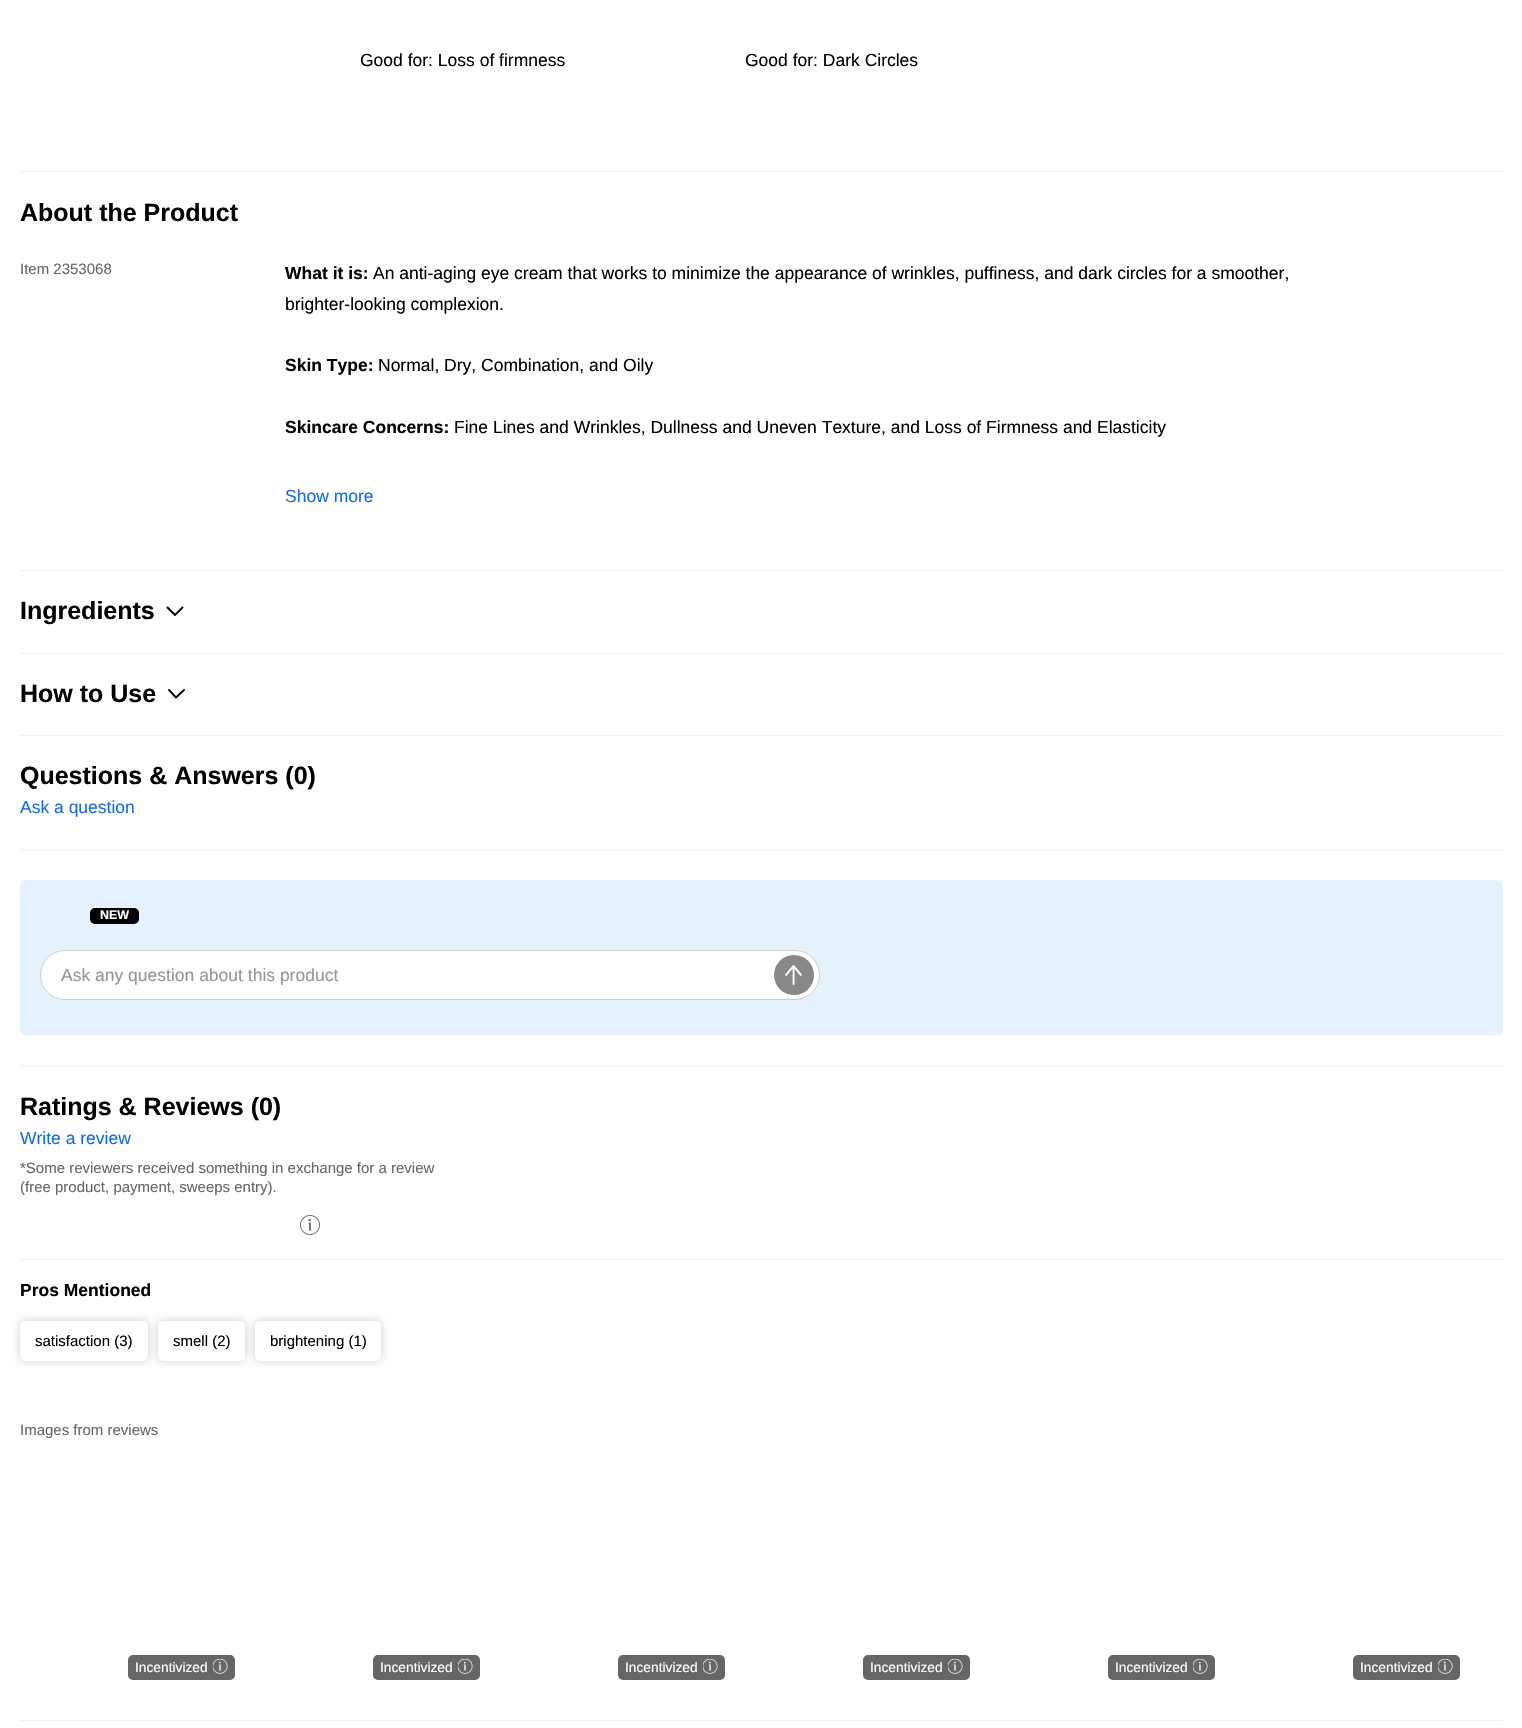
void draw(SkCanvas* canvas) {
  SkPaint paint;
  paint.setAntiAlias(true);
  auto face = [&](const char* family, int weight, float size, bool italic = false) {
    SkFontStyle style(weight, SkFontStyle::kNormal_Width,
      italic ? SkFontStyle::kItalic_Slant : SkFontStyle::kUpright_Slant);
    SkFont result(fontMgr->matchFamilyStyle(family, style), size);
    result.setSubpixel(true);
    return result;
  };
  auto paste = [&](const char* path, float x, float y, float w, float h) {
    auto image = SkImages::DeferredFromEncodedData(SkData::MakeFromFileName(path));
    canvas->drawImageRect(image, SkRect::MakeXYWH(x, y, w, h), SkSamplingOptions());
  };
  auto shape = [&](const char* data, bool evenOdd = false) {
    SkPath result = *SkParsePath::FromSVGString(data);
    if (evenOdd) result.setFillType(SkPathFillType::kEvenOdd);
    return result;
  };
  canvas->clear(0xffffffff);
  paint.setColor(0xffefefef);
  canvas->drawRect(SkRect::MakeXYWH(20, 171, 1483, 1), paint);
  canvas->drawRect(SkRect::MakeXYWH(20, 570, 1483, 1), paint);
  paint.setStroke(true);
  paint.setStrokeWidth(1.9f);
  paint.setStrokeCap(SkPaint::kRound_Cap);
  paint.setStrokeJoin(SkPaint::kRound_Join);
  paint.setColor(0xff000000);
  canvas->drawPath(shape("M167.5 607.5L175 615L182.5 607.5"), paint);
  paint.setStroke(false);
  paint.setColor(0xffefefef);
  canvas->drawRect(SkRect::MakeXYWH(20, 653, 1483, 1), paint);
  paint.setStroke(true);
  paint.setColor(0xff000000);
  canvas->drawPath(shape("M169 690L176 697.5L184 690"), paint);
  paint.setStroke(false);
  paint.setColor(0xffefefef);
  canvas->drawRect(SkRect::MakeXYWH(20, 735, 1483, 1), paint);
  canvas->drawRect(SkRect::MakeXYWH(20, 849, 1483, 1), paint);
  paint.setColor(0xffe5f2fd);
  canvas->drawRoundRect(SkRect::MakeXYWH(20, 880, 1483, 155), 5, 5, paint);
  paint.setColor(0xff000000);
  canvas->drawRoundRect(SkRect::MakeXYWH(90, 908, 49, 16), 5, 5, paint);
  paint.setColor(0xffffffff);
  canvas->drawRoundRect(SkRect::MakeXYWH(40.5f, 950.5f, 779, 49), 24.5f, 24.5f, paint);
  paint.setStroke(true);
  paint.setStrokeWidth(1);
  paint.setStrokeCap(SkPaint::kButt_Cap);
  paint.setStrokeJoin(SkPaint::kMiter_Join);
  paint.setColor(0xffcccccc);
  canvas->drawRoundRect(SkRect::MakeXYWH(40.5f, 950.5f, 779, 49), 24.5f, 24.5f, paint);
  paint.setStroke(false);
  paint.setColor(0xff888888);
  canvas->drawCircle(794, 975, 20, paint);
  paste("img/1.png", 785, 965, 17, 20);
  paint.setColor(0xffefefef);
  canvas->drawRect(SkRect::MakeXYWH(20, 1065, 1483, 1), paint);
  paste("img/2.png", 300, 1215, 20, 20);
  canvas->drawRect(SkRect::MakeXYWH(20, 1259, 1483, 1), paint);
  paint.setColor(0x33000000);
  paint.setMaskFilter(SkMaskFilter::MakeBlur(kNormal_SkBlurStyle, 4));
  canvas->drawRoundRect(SkRect::MakeXYWH(20, 1321, 128, 40), 5, 5, paint);
  paint.setMaskFilter(nullptr);
  paint.setColor(0xffffffff);
  canvas->drawRoundRect(SkRect::MakeXYWH(20, 1321, 128, 40), 5, 5, paint);
  paint.setColor(0x33000000);
  paint.setMaskFilter(SkMaskFilter::MakeBlur(kNormal_SkBlurStyle, 4));
  canvas->drawRoundRect(SkRect::MakeXYWH(158, 1321, 87, 40), 5, 5, paint);
  paint.setMaskFilter(nullptr);
  paint.setColor(0xffffffff);
  canvas->drawRoundRect(SkRect::MakeXYWH(158, 1321, 87, 40), 5, 5, paint);
  paint.setColor(0x33000000);
  paint.setMaskFilter(SkMaskFilter::MakeBlur(kNormal_SkBlurStyle, 4));
  canvas->drawRoundRect(SkRect::MakeXYWH(255, 1321, 126, 40), 5, 5, paint);
  paint.setMaskFilter(nullptr);
  paint.setColor(0xffffffff);
  canvas->drawRoundRect(SkRect::MakeXYWH(255, 1321, 126, 40), 5, 5, paint);
  paint.setColor(0xff666666);
  canvas->drawRoundRect(SkRect::MakeXYWH(128, 1655, 107, 25), 5, 5, paint);
  paste("img/3.png", 213, 1659, 15, 15);
  canvas->drawRoundRect(SkRect::MakeXYWH(373, 1655, 107, 25), 5, 5, paint);
  paste("img/3.png", 458, 1659, 15, 15);
  canvas->drawRoundRect(SkRect::MakeXYWH(618, 1655, 107, 25), 5, 5, paint);
  paste("img/3.png", 703, 1659, 15, 15);
  canvas->drawRoundRect(SkRect::MakeXYWH(863, 1655, 107, 25), 5, 5, paint);
  paste("img/3.png", 948, 1659, 15, 15);
  canvas->drawRoundRect(SkRect::MakeXYWH(1108, 1655, 107, 25), 5, 5, paint);
  paste("img/3.png", 1193, 1659, 15, 15);
  canvas->drawRoundRect(SkRect::MakeXYWH(1353, 1655, 107, 25), 5, 5, paint);
  paste("img/3.png", 1438, 1659, 15, 15);
  paint.setColor(0xffefefef);
  canvas->drawRect(SkRect::MakeXYWH(20, 1720, 1483, 1), paint);
  auto f0 = face("Liberation Sans", 400, 17.5f);
  paint.setColor(0xff000000);
  canvas->drawString("Good for: Loss of firmness", 360, 66, f0, paint);
  canvas->drawString("Good for: Dark Circles", 745, 66, f0, paint);
  auto f1 = face("Liberation Sans", 700, 25);
  canvas->drawString("About the Product", 20, 221, f1, paint);
  auto f2 = face("Liberation Sans", 400, 15);
  paint.setColor(0xff666666);
  canvas->drawString("Item 2353068", 20, 274, f2, paint);
  auto f3 = face("Liberation Sans", 700, 17.5f);
  paint.setColor(0xff000000);
  canvas->drawString("What it is:", 285, 279, f3, paint);
  canvas->drawString("An anti-aging eye cream that works to minimize the appearance of wrinkles, puffiness, and dark circles for a smoother,", 373, 279, f0, paint);
  canvas->drawString("brighter-looking complexion.", 285, 310, f0, paint);
  canvas->drawString("Skin Type:", 285, 371, f3, paint);
  canvas->drawString("Normal, Dry, Combination, and Oily", 378, 371, f0, paint);
  canvas->drawString("Skincare Concerns:", 285, 433, f3, paint);
  canvas->drawString("Fine Lines and Wrinkles, Dullness and Uneven Texture, and Loss of Firmness and Elasticity", 454, 433, f0, paint);
  paint.setColor(0xff136bea);
  canvas->drawString("Show more", 285, 502, f0, paint);
  paint.setColor(0xff000000);
  {
    const struct { const char* s; float x, y; } items[] = {
      {"Ingredients", 20, 619},
      {"How to Use", 20, 702},
      {"Questions & Answers (0)", 20, 784},
    };
    for (auto [s, x, y] : items) {
      canvas->drawString(s, x, y, f1, paint);
    }
  }
  paint.setColor(0xff136bea);
  canvas->drawString("Ask a question", 20, 813, f0, paint);
  auto f4 = face("Liberation Sans", 700, 12.5f);
  paint.setColor(0xffffffff);
  canvas->drawString("NEW", 100, 919, f4, paint);
  paint.setColor(0xff949494);
  canvas->drawString("Ask any question about this product", 61, 981, f0, paint);
  paint.setColor(0xff000000);
  canvas->drawString("Ratings & Reviews (0)", 20, 1115, f1, paint);
  paint.setColor(0xff136bea);
  canvas->drawString("Write a review", 20, 1144, f0, paint);
  paint.setColor(0xff666666);
  canvas->drawString("*Some reviewers received something in exchange for a review", 20, 1173, f2, paint);
  canvas->drawString("(free product, payment, sweeps entry).", 20, 1192, f2, paint);
  paint.setColor(0xff000000);
  canvas->drawString("Pros Mentioned", 20, 1296, f3, paint);
  {
    const struct { const char* s; float x, y; } items[] = {
      {"satisfaction (3)", 35, 1346},
      {"smell (2)", 173, 1346},
      {"brightening (1)", 270, 1346},
    };
    for (auto [s, x, y] : items) {
      canvas->drawString(s, x, y, f2, paint);
    }
  }
  paint.setColor(0xff666666);
  canvas->drawString("Images from reviews", 20, 1435, f2, paint);
  auto f5 = face("Liberation Sans", 400, 13.75f);
  paint.setColor(0xffffffff);
  {
    const struct { const char* s; float x, y; } items[] = {
      {"Incentivized", 135, 1672},
      {"Incentivized", 380, 1672},
      {"Incentivized", 625, 1672},
      {"Incentivized", 870, 1672},
      {"Incentivized", 1115, 1672},
      {"Incentivized", 1360, 1672},
    };
    for (auto [s, x, y] : items) {
      canvas->drawString(s, x, y, f5, paint);
    }
  }
}
